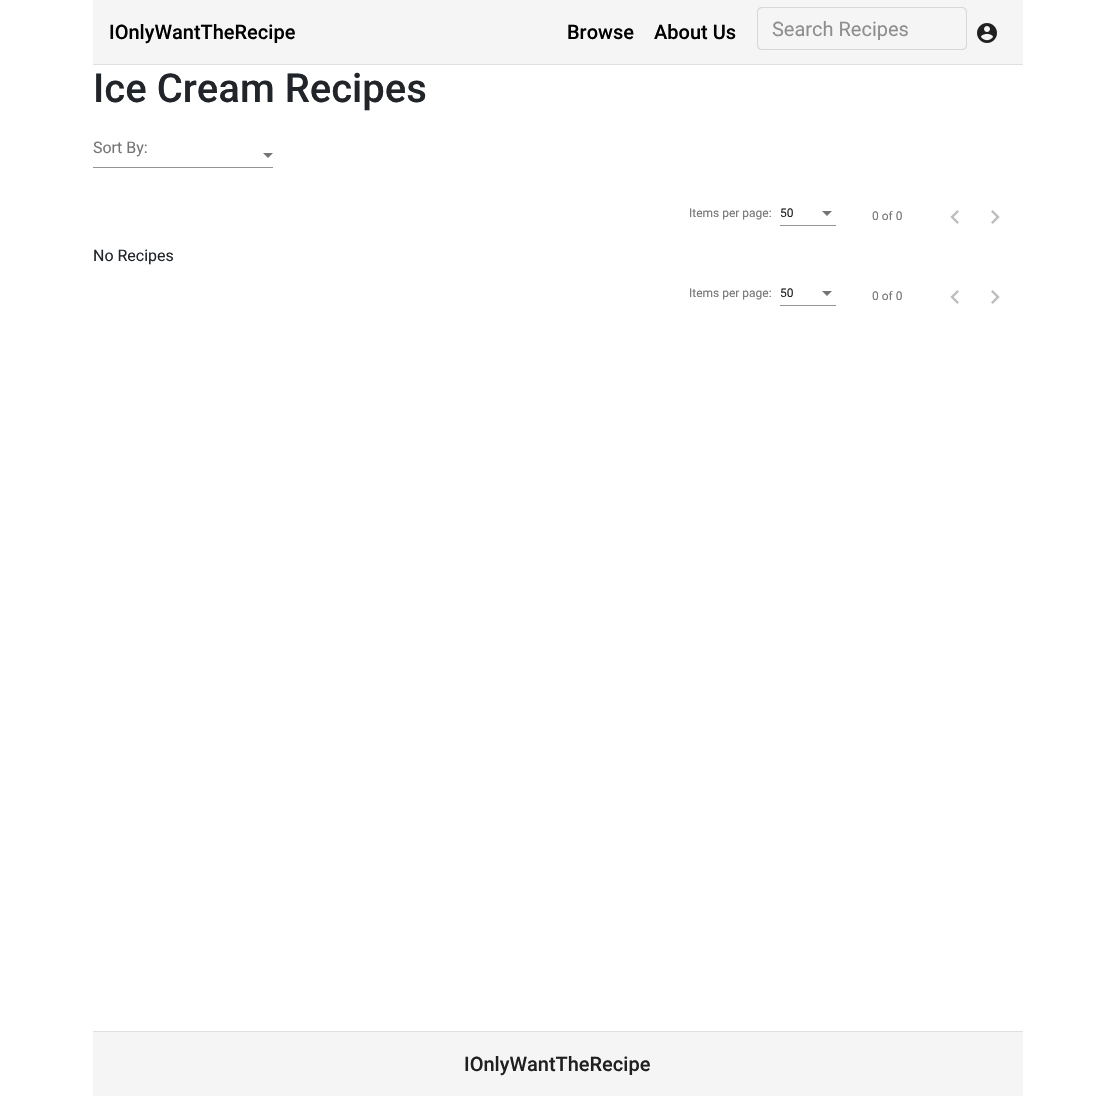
void draw(SkCanvas* canvas) {
  SkPaint paint;
  paint.setAntiAlias(true);
  auto face = [&](const char* family, int weight, float size, bool italic = false) {
    SkFontStyle style(weight, SkFontStyle::kNormal_Width,
      italic ? SkFontStyle::kItalic_Slant : SkFontStyle::kUpright_Slant);
    SkFont result(fontMgr->matchFamilyStyle(family, style), size);
    result.setSubpixel(true);
    return result;
  };
  auto paste = [&](const char* path, float x, float y, float w, float h) {
    auto image = SkImages::DeferredFromEncodedData(SkData::MakeFromFileName(path));
    canvas->drawImageRect(image, SkRect::MakeXYWH(x, y, w, h), SkSamplingOptions());
  };
  auto shape = [&](const char* data, bool evenOdd = false) {
    SkPath result = *SkParsePath::FromSVGString(data);
    if (evenOdd) result.setFillType(SkPathFillType::kEvenOdd);
    return result;
  };
  canvas->clear(0xffffffff);
  paint.setColor(0xfff5f5f5);
  canvas->drawRect(SkRect::MakeXYWH(93, 0, 930, 64), paint);
  paint.setColor(0xffd8d8d8);
  canvas->drawPath(shape("M762 7V50C759 50 757 48 757 45V12C757 9 759 7 762 7ZM762 8V49C760 49 758 47 758 45V12C758 10 760 8 762 8Z", true), paint);
  canvas->drawPath(shape("M762 7H962C965 7 967 9 967 12V45C967 48 965 50 962 50H762ZM762 8H962C964 8 966 10 966 12V45C966 47 964 49 962 49H762Z", true), paint);
  paste("img/1.png", 977, 23, 20, 20);
  paint.setColor(0xffe0e0e0);
  canvas->drawRect(SkRect::MakeXYWH(93, 64, 930, 1), paint);
  paint.setColor(0xff757575);
  canvas->drawPath(shape("M263 153H273L268 158Z"), paint);
  paint.setColor(0xff949494);
  canvas->drawRect(SkRect::MakeXYWH(93, 167, 180, 1), paint);
  paint.setColor(0xff757575);
  canvas->drawPath(shape("M822 211H832L827 216Z"), paint);
  paint.setColor(0xff949494);
  canvas->drawRect(SkRect::MakeXYWH(780, 225, 56, 1), paint);
  paste("img/2.png", 950, 210, 9, 14);
  paste("img/3.png", 991, 210, 9, 14);
  paint.setColor(0xff757575);
  canvas->drawPath(shape("M822 291H832L827 296Z"), paint);
  paint.setColor(0xff949494);
  canvas->drawRect(SkRect::MakeXYWH(780, 305, 56, 1), paint);
  paste("img/2.png", 950, 290, 9, 14);
  paste("img/3.png", 991, 290, 9, 14);
  paint.setColor(0xffe0e0e0);
  canvas->drawRect(SkRect::MakeXYWH(93, 1031, 930, 1), paint);
  paint.setColor(0xfff5f5f5);
  canvas->drawRect(SkRect::MakeXYWH(93, 1032, 930, 64), paint);
  auto f0 = face("Roboto", 500, 20);
  paint.setColor(0xff000000);
  {
    const struct { const char* s; float x, y; } items[] = {
      {"IOnlyWantTheRecipe", 109, 39},
      {"Browse", 567, 39},
      {"About Us", 654, 39},
    };
    for (auto [s, x, y] : items) {
      canvas->drawString(s, x, y, f0, paint);
    }
  }
  auto f1 = face("Roboto", 400, 20);
  paint.setColor(0xff8e8e8e);
  canvas->drawString("Search Recipes", 772, 36, f1, paint);
  auto f2 = face("Roboto", 500, 40);
  paint.setColor(0xff212529);
  canvas->drawString("Ice Cream Recipes", 93, 102, f2, paint);
  auto f3 = face("Roboto", 400, 16);
  paint.setColor(0xff757575);
  canvas->drawString("Sort By:", 93, 153, f3, paint);
  auto f4 = face("Roboto", 400, 12);
  canvas->drawString("Items per page:", 689, 217, f4, paint);
  paint.setColor(0xff202020);
  canvas->drawString("50", 780, 217, f4, paint);
  paint.setColor(0xff757575);
  canvas->drawString("0 of 0", 872, 220, f4, paint);
  paint.setColor(0xff212529);
  canvas->drawString("No Recipes", 93, 261, f3, paint);
  paint.setColor(0xff757575);
  canvas->drawString("Items per page:", 689, 297, f4, paint);
  paint.setColor(0xff202020);
  canvas->drawString("50", 780, 297, f4, paint);
  paint.setColor(0xff757575);
  canvas->drawString("0 of 0", 872, 300, f4, paint);
  paint.setColor(0xff202020);
  canvas->drawString("IOnlyWantTheRecipe", 464, 1071, f0, paint);
}
